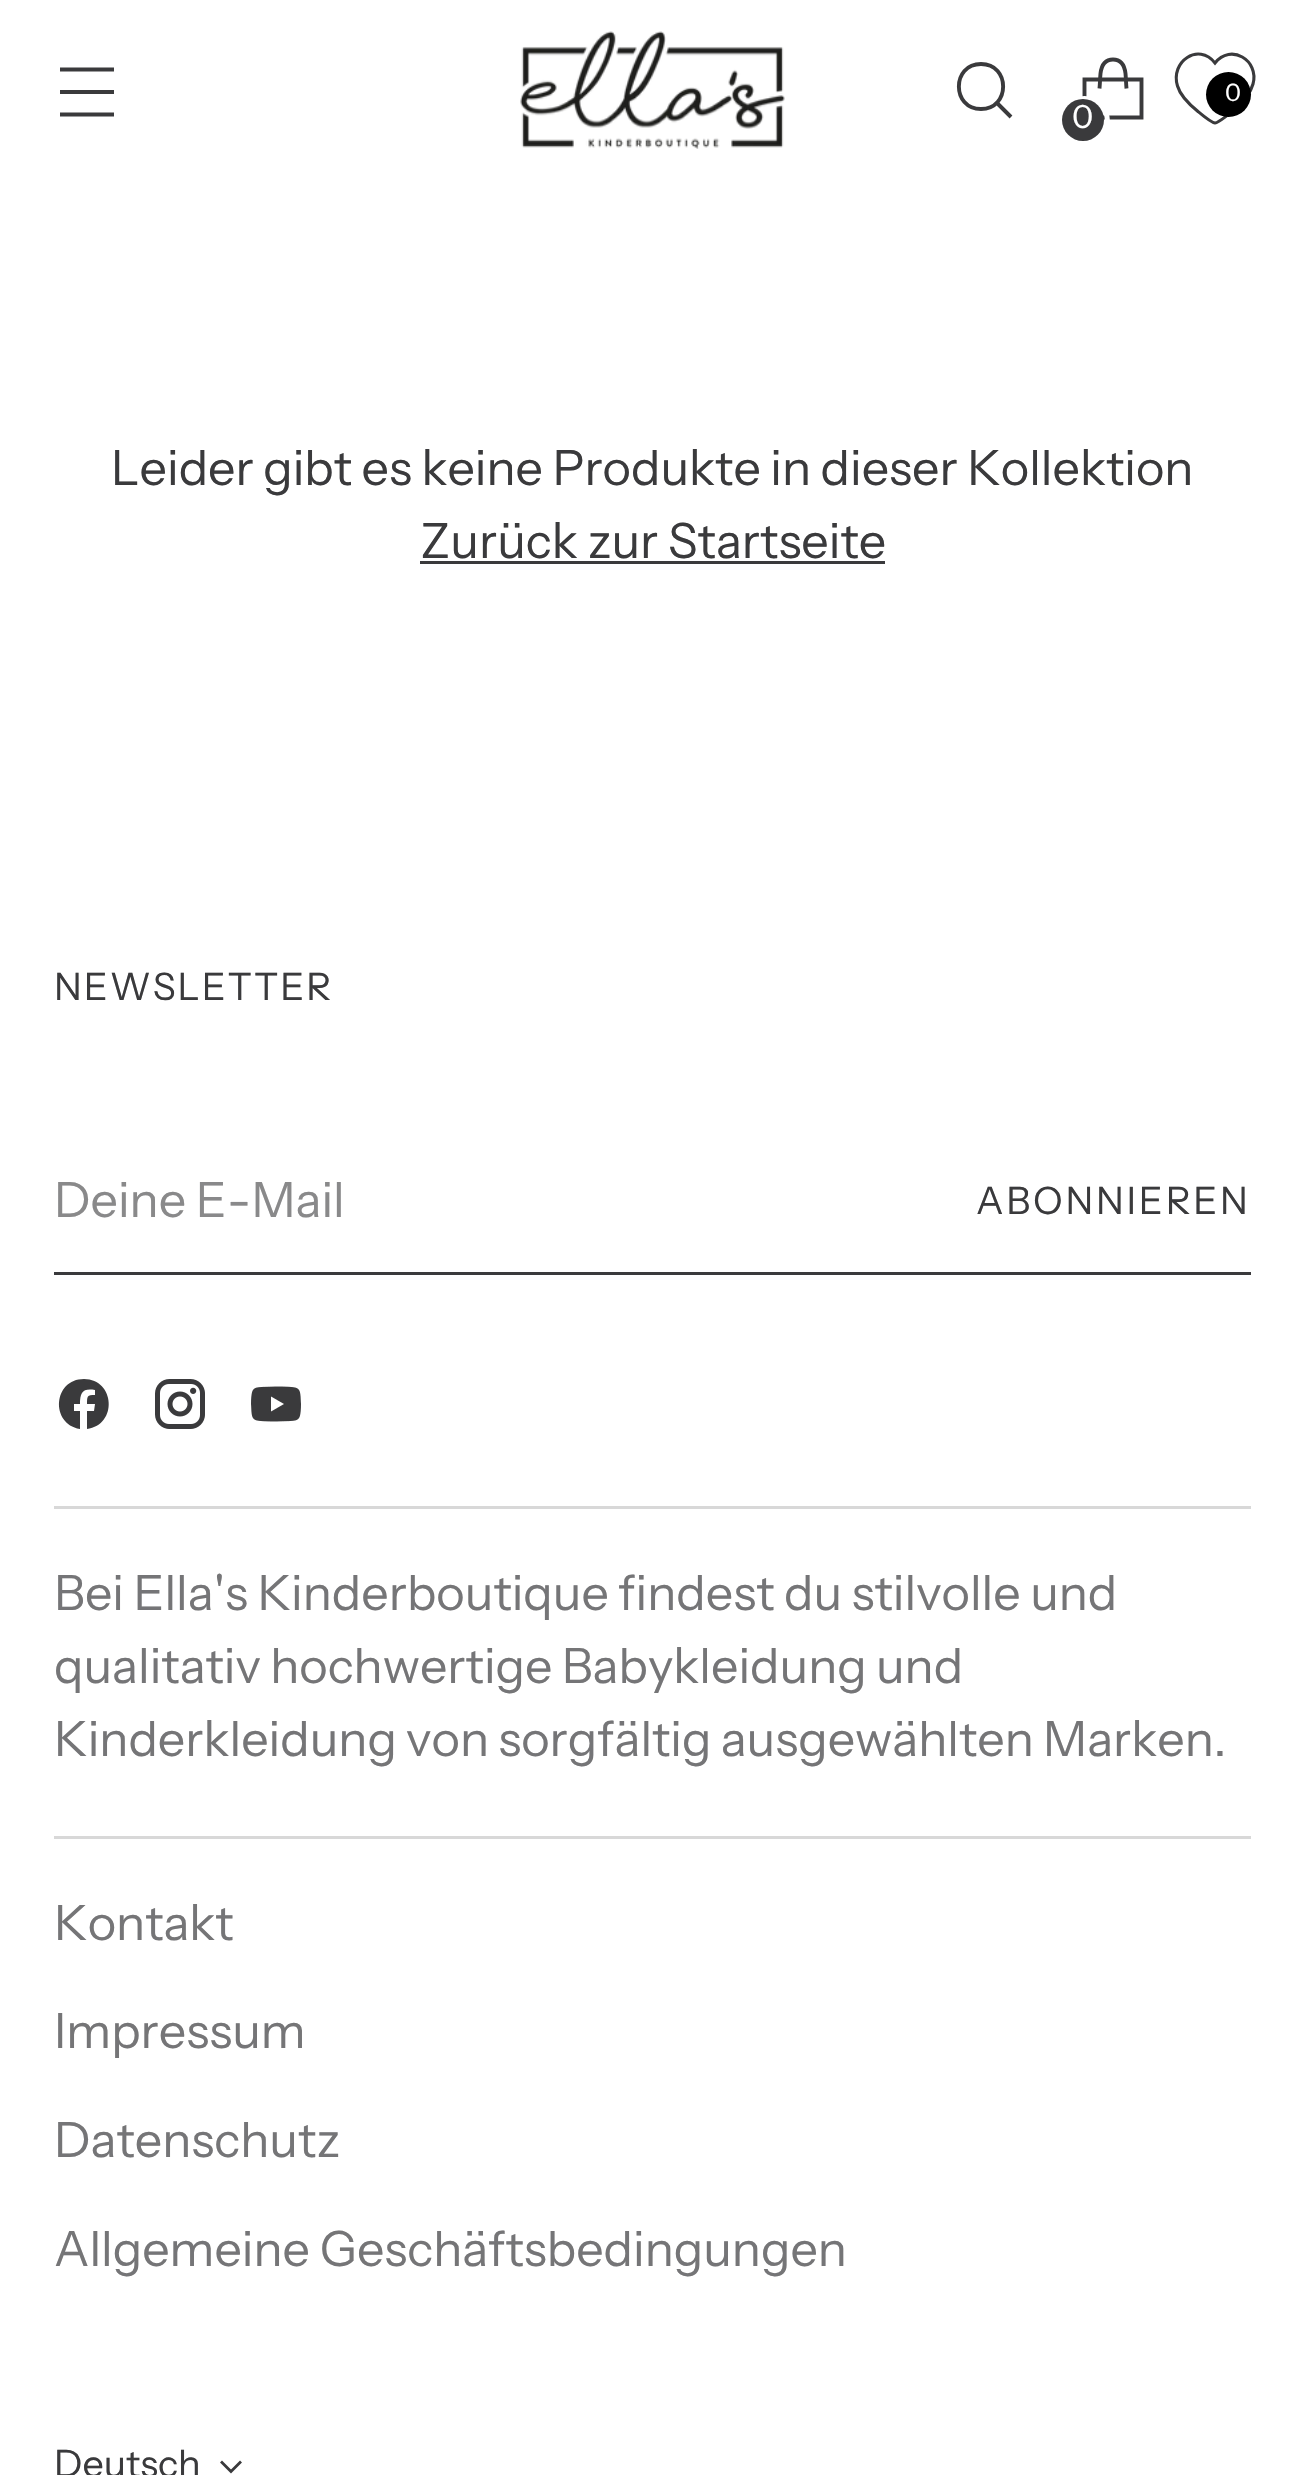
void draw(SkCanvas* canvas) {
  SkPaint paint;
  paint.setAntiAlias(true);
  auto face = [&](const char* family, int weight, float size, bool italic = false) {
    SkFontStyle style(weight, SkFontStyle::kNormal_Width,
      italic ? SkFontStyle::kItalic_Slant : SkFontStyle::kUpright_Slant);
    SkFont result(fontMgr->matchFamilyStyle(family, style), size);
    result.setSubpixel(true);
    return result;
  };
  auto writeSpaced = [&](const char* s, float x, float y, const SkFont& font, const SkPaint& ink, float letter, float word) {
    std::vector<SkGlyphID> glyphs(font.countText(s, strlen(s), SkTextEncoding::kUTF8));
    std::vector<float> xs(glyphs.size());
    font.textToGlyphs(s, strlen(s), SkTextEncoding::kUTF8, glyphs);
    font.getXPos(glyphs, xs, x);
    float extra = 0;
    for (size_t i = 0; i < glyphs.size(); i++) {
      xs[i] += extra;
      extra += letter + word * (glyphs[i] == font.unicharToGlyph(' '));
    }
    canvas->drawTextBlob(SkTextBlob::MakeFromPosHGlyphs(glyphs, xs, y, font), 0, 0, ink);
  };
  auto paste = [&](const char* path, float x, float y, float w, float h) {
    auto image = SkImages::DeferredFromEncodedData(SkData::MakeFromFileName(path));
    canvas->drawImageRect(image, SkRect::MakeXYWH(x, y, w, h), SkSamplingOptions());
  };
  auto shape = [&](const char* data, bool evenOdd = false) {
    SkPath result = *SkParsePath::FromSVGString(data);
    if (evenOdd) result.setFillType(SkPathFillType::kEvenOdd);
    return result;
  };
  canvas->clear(0xffffffff);
  paint.setStroke(true);
  paint.setStrokeWidth(3.9f);
  paint.setColor(0xff3a3a3c);
  canvas->drawPath(shape("M60 92H114M60 69.5H114M60 114.5H114"), paint);
  paste("img/1.png", 520, 31, 265, 118);
  paint.setStrokeCap(SkPaint::kRound_Cap);
  canvas->drawPath(shape("M981 109C1010.5 109 1010.5 64 981 64C951.5 64 951.5 109 981 109Z"), paint);
  paint.setStrokeCap(SkPaint::kButt_Cap);
  canvas->drawPath(shape("M997 103L1011 117"), paint);
  paint.setStrokeWidth(3.1f);
  canvas->drawPath(shape("M1215 123C1211 122.5 1201 114 1198 111.5C1190 105 1180.5 96.5 1177.5 86C1170 61.5 1198.5 42 1215 63C1230.5 43 1259.5 60 1253 84C1250 95.5 1241 104 1232.5 111C1231 112.5 1219 122.5 1215 123Z"), paint);
  paint.setStroke(false);
  paint.setColor(0xff000000);
  canvas->drawCircle(1228.5f, 94.5f, 22.5f, paint);
  paint.setStroke(true);
  paint.setStrokeWidth(3.9f);
  paint.setStrokeJoin(SkPaint::kBevel_Join);
  paint.setColor(0xff3a3a3c);
  canvas->drawPath(shape("M1126.5 88.5C1126 83.5 1126 78.5 1125.5 73.5C1124.5 65 1120.5 59.5 1113 59.5C1105.5 59.5 1101.5 65 1100.5 73.5C1100 78.5 1100 83.5 1099.5 88.5"), paint);
  paint.setStrokeJoin(SkPaint::kMiter_Join);
  canvas->drawPath(shape("M1141.5 117.5V79.5H1084.5V117.5Z"), paint);
  paint.setStrokeWidth(5);
  paint.setColor(0xffffffff);
  canvas->drawCircle(1084.5f, 121.5f, 23, paint);
  paint.setStroke(false);
  paint.setColor(0xff3a3a3c);
  canvas->drawCircle(1083, 120, 21, paint);
  {
    const struct { float x, y, w, h; SkColor color; } items[] = {
      {420, 561, 465, 3, 0xff3a3a3c},
      {54, 1506, 1197, 3, 0xffd8d8d8},
      {54, 1272, 1197, 3, 0xff3a3a3c},
    };
    for (auto [x, y, w, h, color] : items) {
      paint.setColor(color);
      canvas->drawRect(SkRect::MakeXYWH(x, y, w, h), paint);
    }
  }
  canvas->drawPath(shape("M84 1379C53 1379 50 1424 80 1429V1411H74V1404H80C80 1392 83 1388 95 1390V1395C87 1395 87 1396 87 1404H95L94 1411H87V1429C118 1425 115 1379 84 1379Z"), paint);
  paste("img/2.png", 155, 1379, 50, 50);
  paste("img/3.png", 251, 1386, 50, 36);
  paint.setColor(0xffd8d8d8);
  canvas->drawRect(SkRect::MakeXYWH(54, 1836, 1197, 3), paint);
  paint.setStroke(true);
  paint.setStrokeWidth(2.8f);
  paint.setColor(0xff3a3a3c);
  canvas->drawPath(shape("M221 2461.5L231 2471.5L241 2461.5"), paint);
  auto f0 = face("Instrument Sans", 400, 24);
  paint.setStroke(false);
  paint.setColor(0xffffffff);
  canvas->drawString("0", 1225, 101, f0, paint);
  auto f1 = face("Instrument Sans", 400, 32);
  canvas->drawString("0", 1072, 128, f1, paint);
  auto f2 = face("Instrument Sans", 400, 48.6f);
  paint.setColor(0xff3a3a3c);
  writeSpaced("Leider gibt es keine Produkte in dieser Kollektion", 111, 485, f2, paint, 0, -0.25f);
  canvas->drawString("Zurück zur Startseite", 420, 558, f2, paint);
  auto f3 = face("Instrument Sans", 400, 37.75f);
  writeSpaced("NEWSLETTER", 54, 1000, f3, paint, 1.9f, 0);
  paint.setColor(0xff89898a);
  canvas->drawString("Deine E-Mail", 54, 1217, f2, paint);
  paint.setColor(0xff3a3a3c);
  writeSpaced("ABONNIEREN", 976, 1214, f3, paint, 2.75f, 0);
  paint.setColor(0xff757577);
  writeSpaced("Bei Ella's Kinderboutique findest du stilvolle und", 54, 1610, f2, paint, 0, -0.25f);
  writeSpaced("qualitativ hochwertige Babykleidung und", 54, 1683, f2, paint, 0, -0.5f);
  writeSpaced("Kinderkleidung von sorgfältig ausgewählten Marken.", 54, 1756, f2, paint, 0, -0.5f);
  {
    const struct { const char* s; float x, y; } items[] = {
      {"Kontakt", 54, 1940},
      {"Impressum", 54, 2048},
      {"Datenschutz", 54, 2157},
      {"Allgemeine Geschäftsbedingungen", 54, 2266},
    };
    for (auto [s, x, y] : items) {
      canvas->drawString(s, x, y, f2, paint);
    }
  }
  paint.setColor(0xff3a3a3c);
  canvas->drawString("Deutsch", 54, 2477, f3, paint);
}
